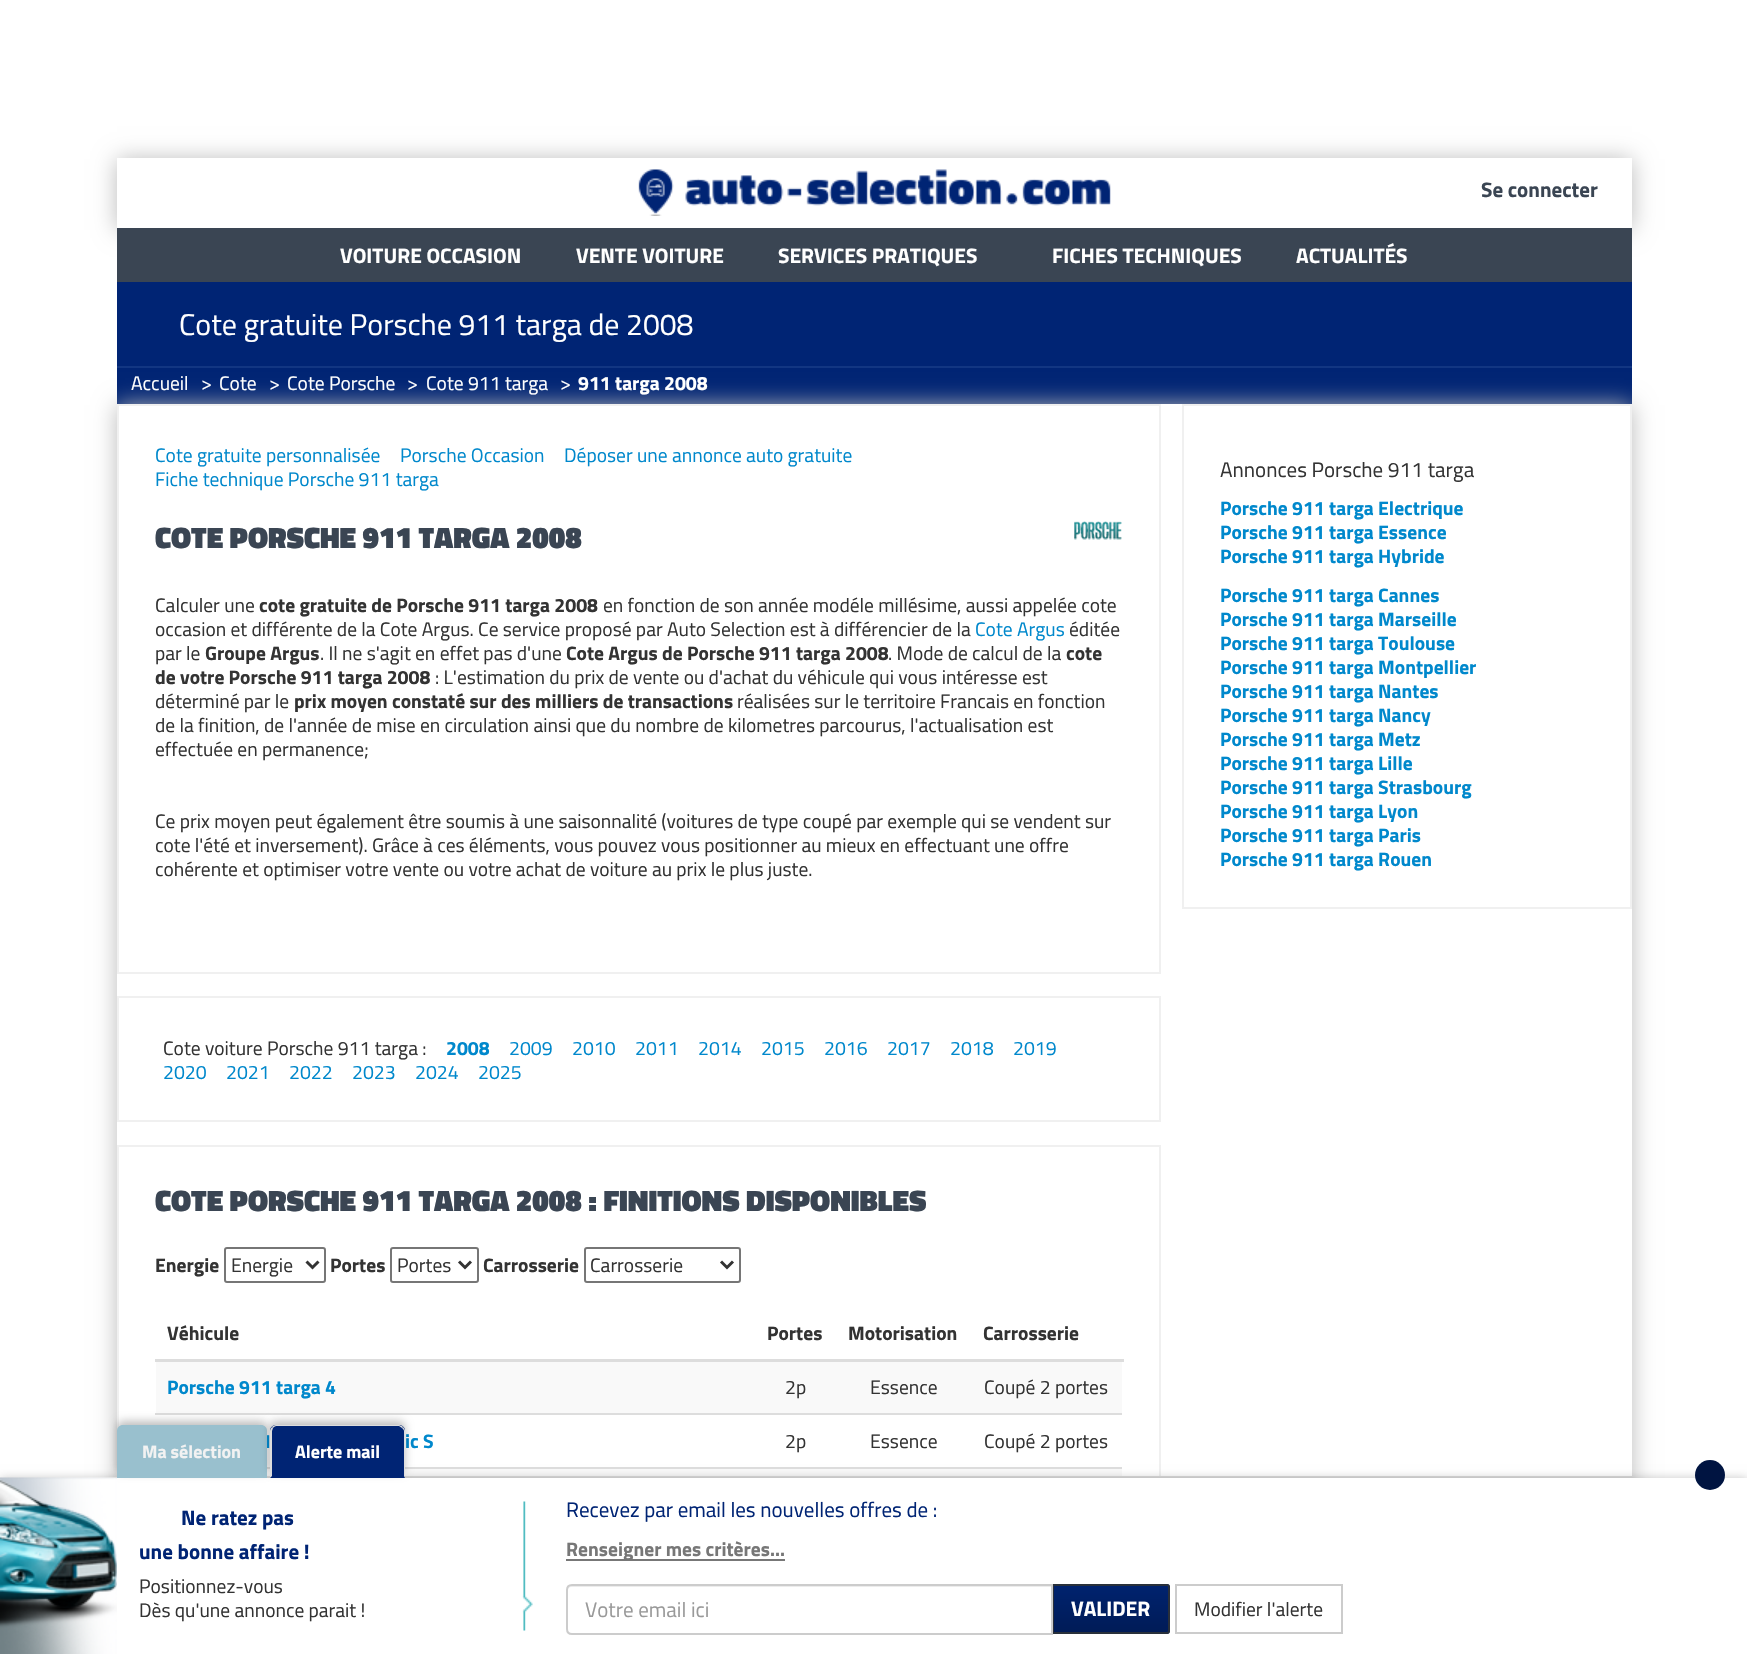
void draw(SkCanvas* canvas) {
  SkPaint paint;
  paint.setAntiAlias(true);
  auto face = [&](const char* family, int weight, float size, bool italic = false) {
    SkFontStyle style(weight, SkFontStyle::kNormal_Width,
      italic ? SkFontStyle::kItalic_Slant : SkFontStyle::kUpright_Slant);
    SkFont result(fontMgr->matchFamilyStyle(family, style), size);
    result.setSubpixel(true);
    return result;
  };
  auto paste = [&](const char* path, float x, float y, float w, float h) {
    auto image = SkImages::DeferredFromEncodedData(SkData::MakeFromFileName(path));
    canvas->drawImageRect(image, SkRect::MakeXYWH(x, y, w, h), SkSamplingOptions());
  };
  auto shape = [&](const char* data, bool evenOdd = false) {
    SkPath result = *SkParsePath::FromSVGString(data);
    if (evenOdd) result.setFillType(SkPathFillType::kEvenOdd);
    return result;
  };
  canvas->clear(0xffffffff);
  canvas->save();
  canvas->clipPath(shape("M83 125H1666V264H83ZM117 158H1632V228H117Z", true), true);
  paint.setColor(0xffbbbbbb);
  paint.setMaskFilter(SkMaskFilter::MakeBlur(kNormal_SkBlurStyle, 11));
  canvas->drawRect(SkRect::MakeXYWH(117, 159, 1515, 71), paint);
  paint.setMaskFilter(nullptr);
  canvas->restore();
  paste("img/1.png", 638, 169, 473, 47);
  {
    const struct { float x, y, w, h; SkColor color; } items[] = {
      {117, 228, 1515, 54, 0xff3a4553},
      {117, 282, 1515, 122, 0xff002474},
      {117, 366, 1515, 2, 0xff123682},
    };
    for (auto [x, y, w, h, color] : items) {
      paint.setColor(color);
      canvas->drawRect(SkRect::MakeXYWH(x, y, w, h), paint);
    }
  }
  canvas->save();
  canvas->clipPath(shape("M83 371H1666V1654H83ZM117 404H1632V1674H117Z", true), true);
  paint.setColor(0xffbbbbbb);
  paint.setMaskFilter(SkMaskFilter::MakeBlur(kNormal_SkBlurStyle, 11));
  canvas->drawRect(SkRect::MakeXYWH(117, 405, 1515, 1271), paint);
  paint.setMaskFilter(nullptr);
  canvas->restore();
  paint.setStroke(true);
  paint.setStrokeWidth(2);
  paint.setColor(0xfff0f0f0);
  canvas->drawRect(SkRect::MakeXYWH(118, 405, 1042, 568), paint);
  paste("img/2.png", 1074, 521, 48, 19);
  canvas->drawRect(SkRect::MakeXYWH(118, 997, 1042, 124), paint);
  canvas->drawRect(SkRect::MakeXYWH(118, 1146, 1042, 496), paint);
  paint.setColor(0xff767676);
  canvas->drawRoundRect(SkRect::MakeXYWH(225, 1248, 100, 34), 2, 2, paint);
  paint.setStrokeWidth(3);
  paint.setColor(0xff333333);
  canvas->drawPath(shape("M306.5 1261.5L312.5 1267.5L318.5 1261.5"), paint);
  paint.setStrokeWidth(2);
  paint.setColor(0xff767676);
  canvas->drawRoundRect(SkRect::MakeXYWH(391, 1248, 87, 34), 2, 2, paint);
  paint.setStrokeWidth(3);
  paint.setColor(0xff333333);
  canvas->drawPath(shape("M459 1261.5L465 1267.5L471 1261.5"), paint);
  paint.setStrokeWidth(2);
  paint.setColor(0xff767676);
  canvas->drawRoundRect(SkRect::MakeXYWH(585, 1248, 155, 34), 2, 2, paint);
  paint.setStrokeWidth(3);
  paint.setColor(0xff333333);
  canvas->drawPath(shape("M721 1261.5L727 1267.5L733 1261.5"), paint);
  paint.setStroke(false);
  {
    const struct { float x, y, w, h; SkColor color; } items[] = {
      {155, 1359, 969, 3, 0xffdddddd},
      {156, 1362, 966, 51, 0xfff9f9f9},
      {155, 1413, 967, 2, 0xffdddddd},
      {267, 1469, 855, 7, 0xfff9f9f9},
      {267, 1467, 855, 2, 0xffdddddd},
    };
    for (auto [x, y, w, h, color] : items) {
      paint.setColor(color);
      canvas->drawRect(SkRect::MakeXYWH(x, y, w, h), paint);
    }
  }
  paint.setStroke(true);
  paint.setStrokeWidth(2);
  paint.setColor(0xfff0f0f0);
  canvas->drawRect(SkRect::MakeXYWH(1183, 405, 448, 503), paint);
  paint.setStroke(false);
  paint.setColor(0xffdddddd);
  canvas->drawRect(SkRect::MakeXYWH(267, 1476, 1365, 2), paint);
  paint.setColor(0x40000000);
  paint.setMaskFilter(SkMaskFilter::MakeBlur(kNormal_SkBlurStyle, 5));
  canvas->drawRect(SkRect::MakeXYWH(0, 1479, 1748, 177), paint);
  paint.setMaskFilter(nullptr);
  paint.setColor(0xffffffff);
  canvas->drawRect(SkRect::MakeXYWH(0, 1478, 1747, 176), paint);
  paint.setColor(0x40000000);
  paint.setMaskFilter(SkMaskFilter::MakeBlur(kNormal_SkBlurStyle, 4.5f));
  canvas->drawRoundRect(SkRect::MakeXYWH(117, 1421, 150, 52), 6, 6, paint);
  paint.setMaskFilter(nullptr);
  paint.setColor(0xff001441);
  canvas->drawCircle(1710, 1475, 15, paint);
  paste("img/3.png", 0, 1477, 117, 177);
  paste("img/4.png", 522, 1501, 11, 130);
  paint.setColor(0xff777777);
  canvas->drawRect(SkRect::MakeXYWH(566, 1559, 219, 2), paint);
  paint.setColor(0xff002474);
  canvas->drawPath(shape("M1052 1584H1167C1168.5 1584 1170 1585.5 1170 1587V1631C1170 1632.5 1168.5 1634 1167 1634H1052Z"), paint);
  {
    const SkColor colors[] = {0x40000000, 0x0d000000};
    const float stops[] = {0, 1};
    const SkPoint ends[] = {{1111, 1632}, {1111, 1586}};
    paint.setShader(SkGradientShader::MakeLinear(ends, colors, stops, 2, SkTileMode::kClamp));
    paint.setAlpha(255);
  }
  canvas->drawRect(SkRect::MakeXYWH(1054, 1586, 116, 46), paint);
  paint.setStroke(true);
  paint.setShader(nullptr);
  paint.setColor(0xff29303a);
  canvas->drawPath(shape("M1053 1585H1167C1168 1585 1169 1586 1169 1587V1631C1169 1632 1168 1633 1167 1633H1053Z"), paint);
  paint.setStroke(false);
  paint.setColor(0xffffffff);
  canvas->drawPath(shape("M572 1584H1053V1635H572C568.5 1635 566 1632.5 566 1629V1590C566 1586.5 568.5 1584 572 1584Z"), paint);
  paint.setColor(0xffececec);
  canvas->drawPath(shape("M572 1587H1052V1586H572C569 1586 567 1588 567 1591V1592C567 1589 569 1587 572 1587Z"), paint);
  paint.setStroke(true);
  paint.setColor(0xffcccccc);
  canvas->drawPath(shape("M572 1585H1052V1634H572C569 1634 567 1632 567 1629V1590C567 1587 569 1585 572 1585Z"), paint);
  canvas->drawRect(SkRect::MakeXYWH(1176, 1585, 166, 48), paint);
  auto f0 = face("Titillium Web", 700, 21);
  paint.setStroke(false);
  paint.setColor(0xff3a4553);
  canvas->drawString("Se connecter", 1481, 197, f0, paint);
  paint.setColor(0xffffffff);
  {
    const struct { const char* s; float x, y; } items[] = {
      {"VOITURE OCCASION", 340, 263},
      {"VENTE VOITURE", 576, 263},
      {"SERVICES PRATIQUES", 778, 263},
      {"FICHES TECHNIQUES", 1052, 263},
      {"ACTUALITÉS", 1296, 263},
    };
    for (auto [s, x, y] : items) {
      canvas->drawString(s, x, y, f0, paint);
    }
  }
  auto f1 = face("Titillium Web", 400, 30);
  canvas->drawString("Cote gratuite Porsche 911 targa de 2008", 179, 335, f1, paint);
  auto f2 = face("Titillium Web", 400, 19.5f);
  {
    const struct { const char* s; float x, y; } items[] = {
      {"Accueil", 131, 390},
      {">", 201, 390},
      {"Cote", 219, 390},
      {">", 269, 390},
      {"Cote Porsche", 287, 390},
      {">", 407, 390},
      {"Cote 911 targa", 426, 390},
      {">", 560, 390},
    };
    for (auto [s, x, y] : items) {
      canvas->drawString(s, x, y, f2, paint);
    }
  }
  auto f3 = face("Titillium Web", 700, 19.5f);
  canvas->drawString("911 targa 2008", 578, 390, f3, paint);
  paint.setColor(0xff0088cc);
  {
    const struct { const char* s; float x, y; } items[] = {
      {"Cote gratuite personnalisée", 155, 462},
      {"Porsche Occasion", 400, 462},
      {"Déposer une annonce auto gratuite", 564, 462},
      {"Fiche technique Porsche 911 targa", 155, 486},
    };
    for (auto [s, x, y] : items) {
      canvas->drawString(s, x, y, f2, paint);
    }
  }
  auto f4 = face("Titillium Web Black", 900, 30);
  paint.setColor(0xff3a4553);
  canvas->drawString("COTE PORSCHE 911 TARGA 2008", 155, 548, f4, paint);
  paint.setColor(0xff333333);
  canvas->drawString("Calculer une", 155, 612, f2, paint);
  canvas->drawString("cote gratuite de Porsche 911 targa 2008", 259, 612, f3, paint);
  canvas->drawString("en fonction de son année modéle millésime, aussi appelée cote", 603, 612, f2, paint);
  canvas->drawString("occasion et différente de la Cote Argus. Ce service proposé par Auto Selection est à différencier de la", 155, 636, f2, paint);
  paint.setColor(0xff0088cc);
  canvas->drawString("Cote Argus", 975, 636, f2, paint);
  paint.setColor(0xff333333);
  canvas->drawString("éditée", 1069, 636, f2, paint);
  canvas->drawString("par le", 155, 660, f2, paint);
  canvas->drawString("Groupe Argus", 205, 660, f3, paint);
  canvas->drawString(". Il ne s'agit en effet pas d'une", 320, 660, f2, paint);
  canvas->drawString("Cote Argus de Porsche 911 targa 2008", 566, 660, f3, paint);
  canvas->drawString(". Mode de calcul de la", 888, 660, f2, paint);
  canvas->drawString("cote", 1066, 660, f3, paint);
  canvas->drawString("de votre Porsche 911 targa 2008", 155, 684, f3, paint);
  canvas->drawString(": L'estimation du prix de vente ou d'achat du véhicule qui vous intéresse est", 435, 684, f2, paint);
  canvas->drawString("déterminé par le", 155, 708, f2, paint);
  canvas->drawString("prix moyen constaté sur des milliers de transactions", 294, 708, f3, paint);
  {
    const struct { const char* s; float x, y; } items[] = {
      {"réalisées sur le territoire Francais en fonction", 737, 708},
      {"de la finition, de l'année de mise en circulation ainsi que du nombre de kilometres parcourus, l'actualisation est", 155, 732},
      {"effectuée en permanence;", 155, 756},
      {"Ce prix moyen peut également être soumis à une saisonnalité (voitures de type coupé par exemple qui se vendent sur", 155, 828},
      {"cote l'été et inversement). Grâce à ces éléments, vous pouvez vous positionner au mieux en effectuant une offre", 155, 852},
      {"cohérente et optimiser votre vente ou votre achat de voiture au prix le plus juste.", 155, 876},
      {"Cote voiture Porsche 911 targa :", 163, 1055},
    };
    for (auto [s, x, y] : items) {
      canvas->drawString(s, x, y, f2, paint);
    }
  }
  paint.setColor(0xff0088cc);
  canvas->drawString("2008", 446, 1055, f3, paint);
  {
    const struct { const char* s; float x, y; } items[] = {
      {"2009", 509, 1055},
      {"2010", 572, 1055},
      {"2011", 635, 1055},
      {"2014", 698, 1055},
      {"2015", 761, 1055},
      {"2016", 824, 1055},
      {"2017", 887, 1055},
      {"2018", 950, 1055},
      {"2019", 1013, 1055},
      {"2020", 163, 1079},
      {"2021", 226, 1079},
      {"2022", 289, 1079},
      {"2023", 352, 1079},
      {"2024", 415, 1079},
      {"2025", 478, 1079},
    };
    for (auto [s, x, y] : items) {
      canvas->drawString(s, x, y, f2, paint);
    }
  }
  paint.setColor(0xff3a4553);
  canvas->drawString("COTE PORSCHE 911 TARGA 2008 : FINITIONS DISPONIBLES", 155, 1211, f4, paint);
  paint.setColor(0xff333333);
  canvas->drawString("Energie", 155, 1272, f3, paint);
  canvas->drawString("Energie", 231, 1272, f2, paint);
  canvas->drawString("Portes", 330, 1272, f3, paint);
  canvas->drawString("Portes", 397, 1272, f2, paint);
  canvas->drawString("Carrosserie", 483, 1272, f3, paint);
  canvas->drawString("Carrosserie", 590, 1272, f2, paint);
  {
    const struct { const char* s; float x, y; } items[] = {
      {"Véhicule", 167, 1340},
      {"Portes", 767, 1340},
      {"Motorisation", 848, 1340},
      {"Carrosserie", 983, 1340},
    };
    for (auto [s, x, y] : items) {
      canvas->drawString(s, x, y, f3, paint);
    }
  }
  paint.setColor(0xff0088cc);
  canvas->drawString("Porsche 911 targa 4", 167, 1394, f3, paint);
  paint.setColor(0xff333333);
  {
    const struct { const char* s; float x, y; } items[] = {
      {"2p", 785, 1394},
      {"Essence", 870, 1394},
      {"Coupé 2 portes", 984, 1394},
    };
    for (auto [s, x, y] : items) {
      canvas->drawString(s, x, y, f2, paint);
    }
  }
  paint.setColor(0xff0088cc);
  canvas->drawString("1", 261, 1448, f3, paint);
  canvas->drawString("ic S", 405, 1448, f3, paint);
  paint.setColor(0xff333333);
  {
    const struct { const char* s; float x, y; } items[] = {
      {"2p", 785, 1448},
      {"Essence", 870, 1448},
      {"Coupé 2 portes", 984, 1448},
    };
    for (auto [s, x, y] : items) {
      canvas->drawString(s, x, y, f2, paint);
    }
  }
  auto f5 = face("Titillium Web", 400, 21);
  canvas->drawString("Annonces Porsche 911 targa", 1220, 477, f5, paint);
  paint.setColor(0xff0088cc);
  {
    const struct { const char* s; float x, y; } items[] = {
      {"Porsche 911 targa Electrique", 1220, 515},
      {"Porsche 911 targa Essence", 1220, 539},
      {"Porsche 911 targa Hybride", 1220, 563},
      {"Porsche 911 targa Cannes", 1220, 602},
      {"Porsche 911 targa Marseille", 1220, 626},
      {"Porsche 911 targa Toulouse", 1220, 650},
      {"Porsche 911 targa Montpellier", 1220, 674},
      {"Porsche 911 targa Nantes", 1220, 698},
      {"Porsche 911 targa Nancy", 1220, 722},
      {"Porsche 911 targa Metz", 1220, 746},
      {"Porsche 911 targa Lille", 1220, 770},
      {"Porsche 911 targa Strasbourg", 1220, 794},
      {"Porsche 911 targa Lyon", 1220, 818},
      {"Porsche 911 targa Paris", 1220, 842},
      {"Porsche 911 targa Rouen", 1220, 866},
    };
    for (auto [s, x, y] : items) {
      canvas->drawString(s, x, y, f3, paint);
    }
  }
  paint.setColor(0xff99c0ce);
  canvas->drawPath(shape("M123 1425H261C264.5 1425 267 1427.5 267 1431V1478H117V1431C117 1427.5 119.5 1425 123 1425Z"), paint);
  auto f6 = face("Titillium Web", 700, 18);
  paint.setColor(0xfff2f2f2);
  canvas->drawString("Ma sélection", 142, 1458, f6, paint);
  paint.setColor(0x40000000);
  paint.setMaskFilter(SkMaskFilter::MakeBlur(kNormal_SkBlurStyle, 4.5f));
  canvas->drawRoundRect(SkRect::MakeXYWH(270, 1421, 135, 52), 6, 6, paint);
  paint.setMaskFilter(nullptr);
  paint.setColor(0xff002474);
  canvas->drawPath(shape("M276 1425H399C402.5 1425 405 1427.5 405 1431V1478H270V1431C270 1427.5 272.5 1425 276 1425Z"), paint);
  paint.setColor(0xffdddddd);
  canvas->drawPath(shape("M276 1425C274 1425 273 1426 272 1427L273 1428L274 1427L276 1426H399L402 1428L403 1427C402 1426 400 1425 399 1425Z"), paint);
  canvas->drawPath(shape("M405 1478V1431C405 1430 404 1428 403 1427L402 1428C403 1429 404 1430 404 1431V1476Z"), paint);
  canvas->drawPath(shape("M270 1478L272 1476V1431L273 1428L272 1427C271 1428 270 1430 270 1431Z"), paint);
  paint.setColor(0xffffffff);
  canvas->drawString("Alerte mail", 295, 1458, f6, paint);
  paint.setColor(0xff002474);
  canvas->drawString("Ne ratez pas", 181, 1525, f0, paint);
  canvas->drawString("une bonne affaire !", 139, 1559, f0, paint);
  paint.setColor(0xff333333);
  canvas->drawString("Positionnez-vous", 139, 1593, f2, paint);
  canvas->drawString("Dès qu'une annonce parait !", 139, 1617, f2, paint);
  paint.setColor(0xff002474);
  canvas->drawString("Recevez par email les nouvelles offres de :", 566, 1517, f5, paint);
  paint.setColor(0xff777777);
  canvas->drawString("Renseigner mes critères...", 566, 1556, f3, paint);
  paint.setColor(0xff999999);
  canvas->drawString("Votre email ici", 585, 1617, f5, paint);
  paint.setColor(0xffffffff);
  canvas->drawString("VALIDER", 1071, 1616, f0, paint);
  paint.setColor(0xff333333);
  canvas->drawString("Modifier l'alerte", 1194, 1616, f2, paint);
}
